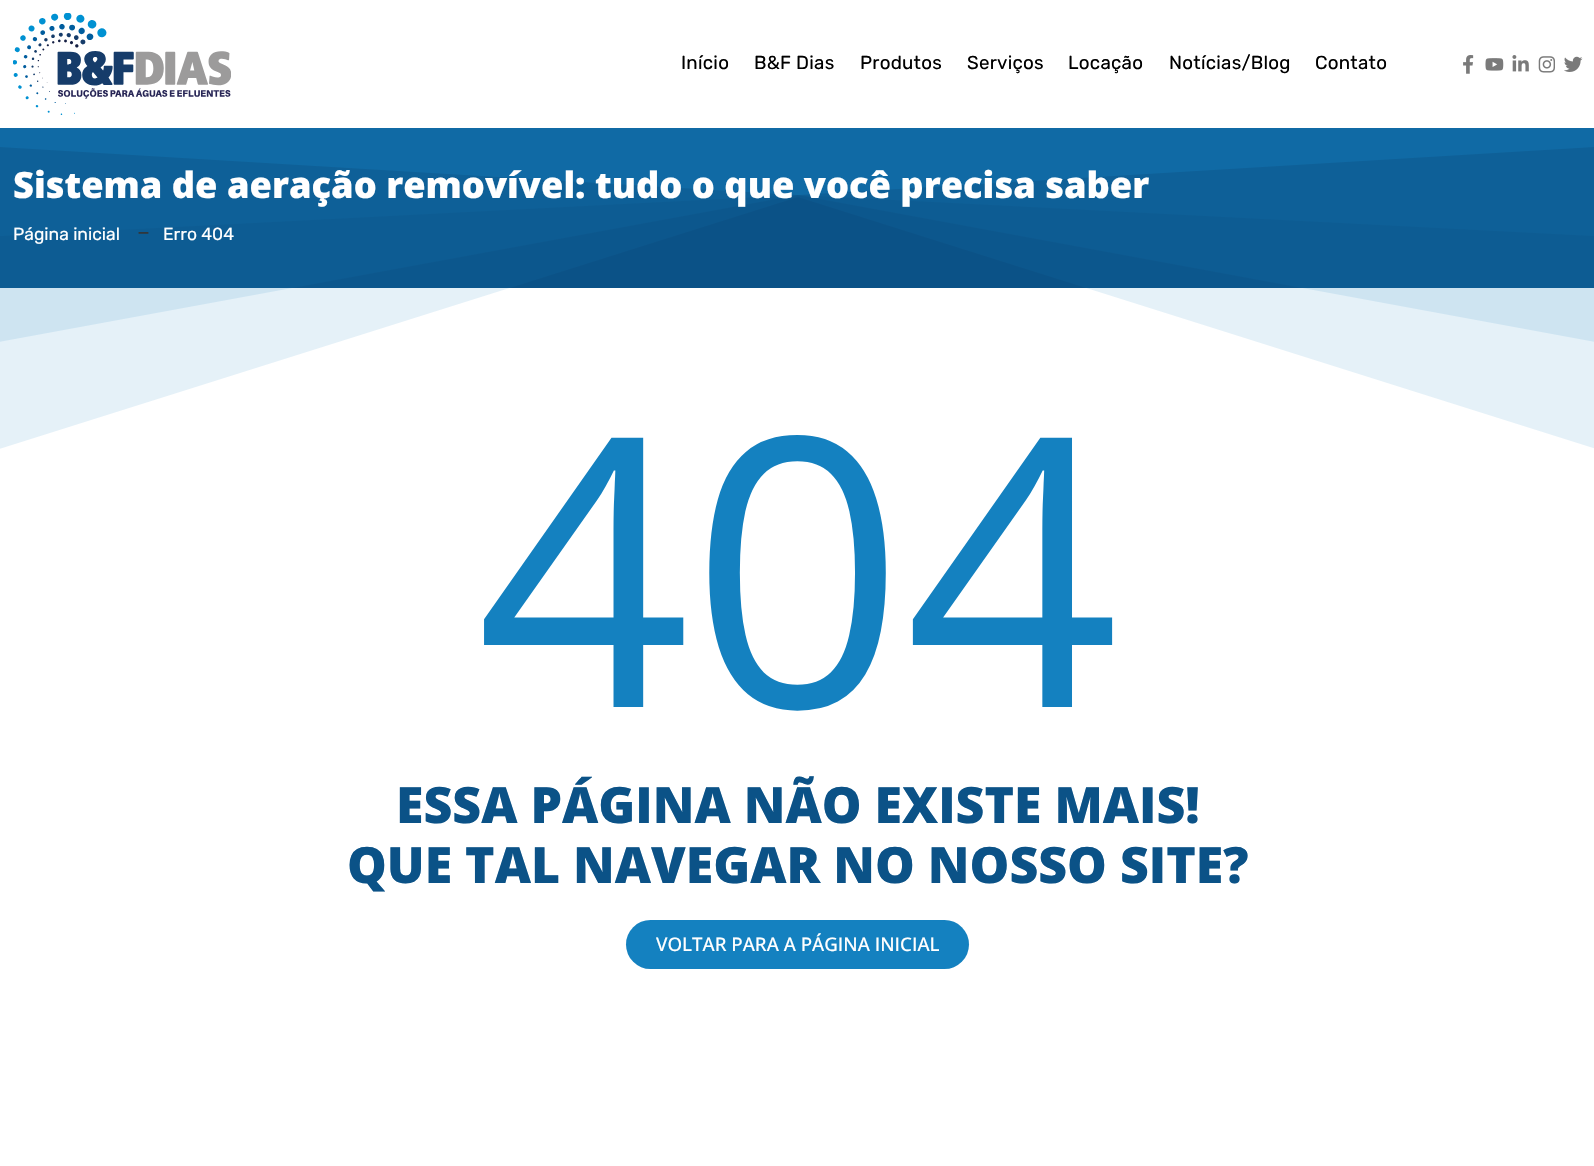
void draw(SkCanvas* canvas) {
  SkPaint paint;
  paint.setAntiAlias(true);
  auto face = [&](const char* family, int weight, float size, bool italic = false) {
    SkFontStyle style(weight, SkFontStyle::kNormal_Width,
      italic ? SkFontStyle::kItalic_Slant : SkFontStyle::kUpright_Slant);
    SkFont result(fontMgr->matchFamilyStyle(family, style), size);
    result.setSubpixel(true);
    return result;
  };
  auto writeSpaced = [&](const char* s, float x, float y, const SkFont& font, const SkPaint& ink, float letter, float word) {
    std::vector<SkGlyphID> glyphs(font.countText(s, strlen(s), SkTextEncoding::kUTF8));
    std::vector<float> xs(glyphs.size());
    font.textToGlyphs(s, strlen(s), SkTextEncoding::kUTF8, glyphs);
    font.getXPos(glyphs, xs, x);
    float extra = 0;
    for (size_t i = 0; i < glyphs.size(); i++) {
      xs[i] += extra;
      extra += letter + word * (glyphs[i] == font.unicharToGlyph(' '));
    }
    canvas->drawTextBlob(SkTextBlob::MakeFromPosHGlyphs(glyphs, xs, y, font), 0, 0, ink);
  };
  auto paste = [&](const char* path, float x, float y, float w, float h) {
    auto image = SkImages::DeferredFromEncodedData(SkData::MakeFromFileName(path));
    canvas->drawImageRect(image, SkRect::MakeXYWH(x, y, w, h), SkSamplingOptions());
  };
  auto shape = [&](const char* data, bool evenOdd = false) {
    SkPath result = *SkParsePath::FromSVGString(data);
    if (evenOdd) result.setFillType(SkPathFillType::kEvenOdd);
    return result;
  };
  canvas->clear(0xffffffff);
  paint.setColor(0xff0b5287);
  canvas->drawRect(SkRect::MakeXYWH(0, 128, 1594, 160), paint);
  paint.setColor(0x1c1481c0);
  canvas->drawPath(shape("M-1 126V449L798 197L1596 449V126Z"), paint);
  canvas->drawPath(shape("M-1 126V342L798 195L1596 342V126Z"), paint);
  canvas->drawPath(shape("M-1 126V236L798 195L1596 236V126Z"), paint);
  paint.setColor(0x521481c0);
  canvas->drawPath(shape("M-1 126V147L798 195L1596 147V126Z"), paint);
  paint.setColor(0xffffffff);
  canvas->drawRect(SkRect::MakeXYWH(0, 126, 1594, 2), paint);
  paste("img/1.png", 13, 13, 218, 102);
  paste("img/2.png", 1463, 55, 11, 19);
  paste("img/3.png", 1485, 58, 19, 13);
  paste("img/4.png", 1512, 55, 17, 17);
  paste("img/5.png", 1538, 56, 17, 17);
  paste("img/6.png", 1564, 56, 19, 16);
  paint.setColor(0xff1481c0);
  canvas->drawRoundRect(SkRect::MakeXYWH(626, 920, 343, 49), 24.5f, 24.5f, paint);
  auto f0 = face("Rubik", 400, 18.75f);
  paint.setColor(0xff000000);
  {
    const struct { const char* s; float x, y; } items[] = {
      {"Início", 681, 69},
      {"B&F Dias", 754, 69},
      {"Produtos", 860, 69},
      {"Serviços", 967, 69},
      {"Locação", 1068, 69},
      {"Notícias/Blog", 1169, 69},
      {"Contato", 1315, 69},
    };
    for (auto [s, x, y] : items) {
      writeSpaced(s, x, y, f0, paint, 0.25f, 0);
    }
  }
  auto f1 = face("Open Sans", 800, 36.25f);
  paint.setColor(0xffffffff);
  canvas->drawString("Sistema de aeração removível: tudo o que você precisa saber", 13, 198, f1, paint);
  auto f2 = face("Rubik", 400, 17.5f);
  canvas->drawString("Página inicial", 13, 240, f2, paint);
  auto f3 = face("Roboto", 400, 20);
  paint.setColor(0xff333333);
  canvas->drawString("–", 137, 240, f3, paint);
  paint.setColor(0xffffffff);
  canvas->drawString("Erro 404", 163, 240, f2, paint);
  auto f4 = face("Open Sans", 400, 375);
  paint.setColor(0xff1481c0);
  canvas->drawString("404", 476, 707, f4, paint);
  auto f5 = face("Open Sans", 800, 50);
  paint.setColor(0xff0b5287);
  canvas->drawString("ESSA PÁGINA NÃO EXISTE MAIS!", 396, 823, f5, paint);
  canvas->drawString("QUE TAL NAVEGAR NO NOSSO SITE?", 347, 883, f5, paint);
  auto f6 = face("Open Sans", 500, 18.75f);
  paint.setColor(0xffffffff);
  canvas->drawString("VOLTAR PARA A PÁGINA INICIAL", 656, 951, f6, paint);
}
